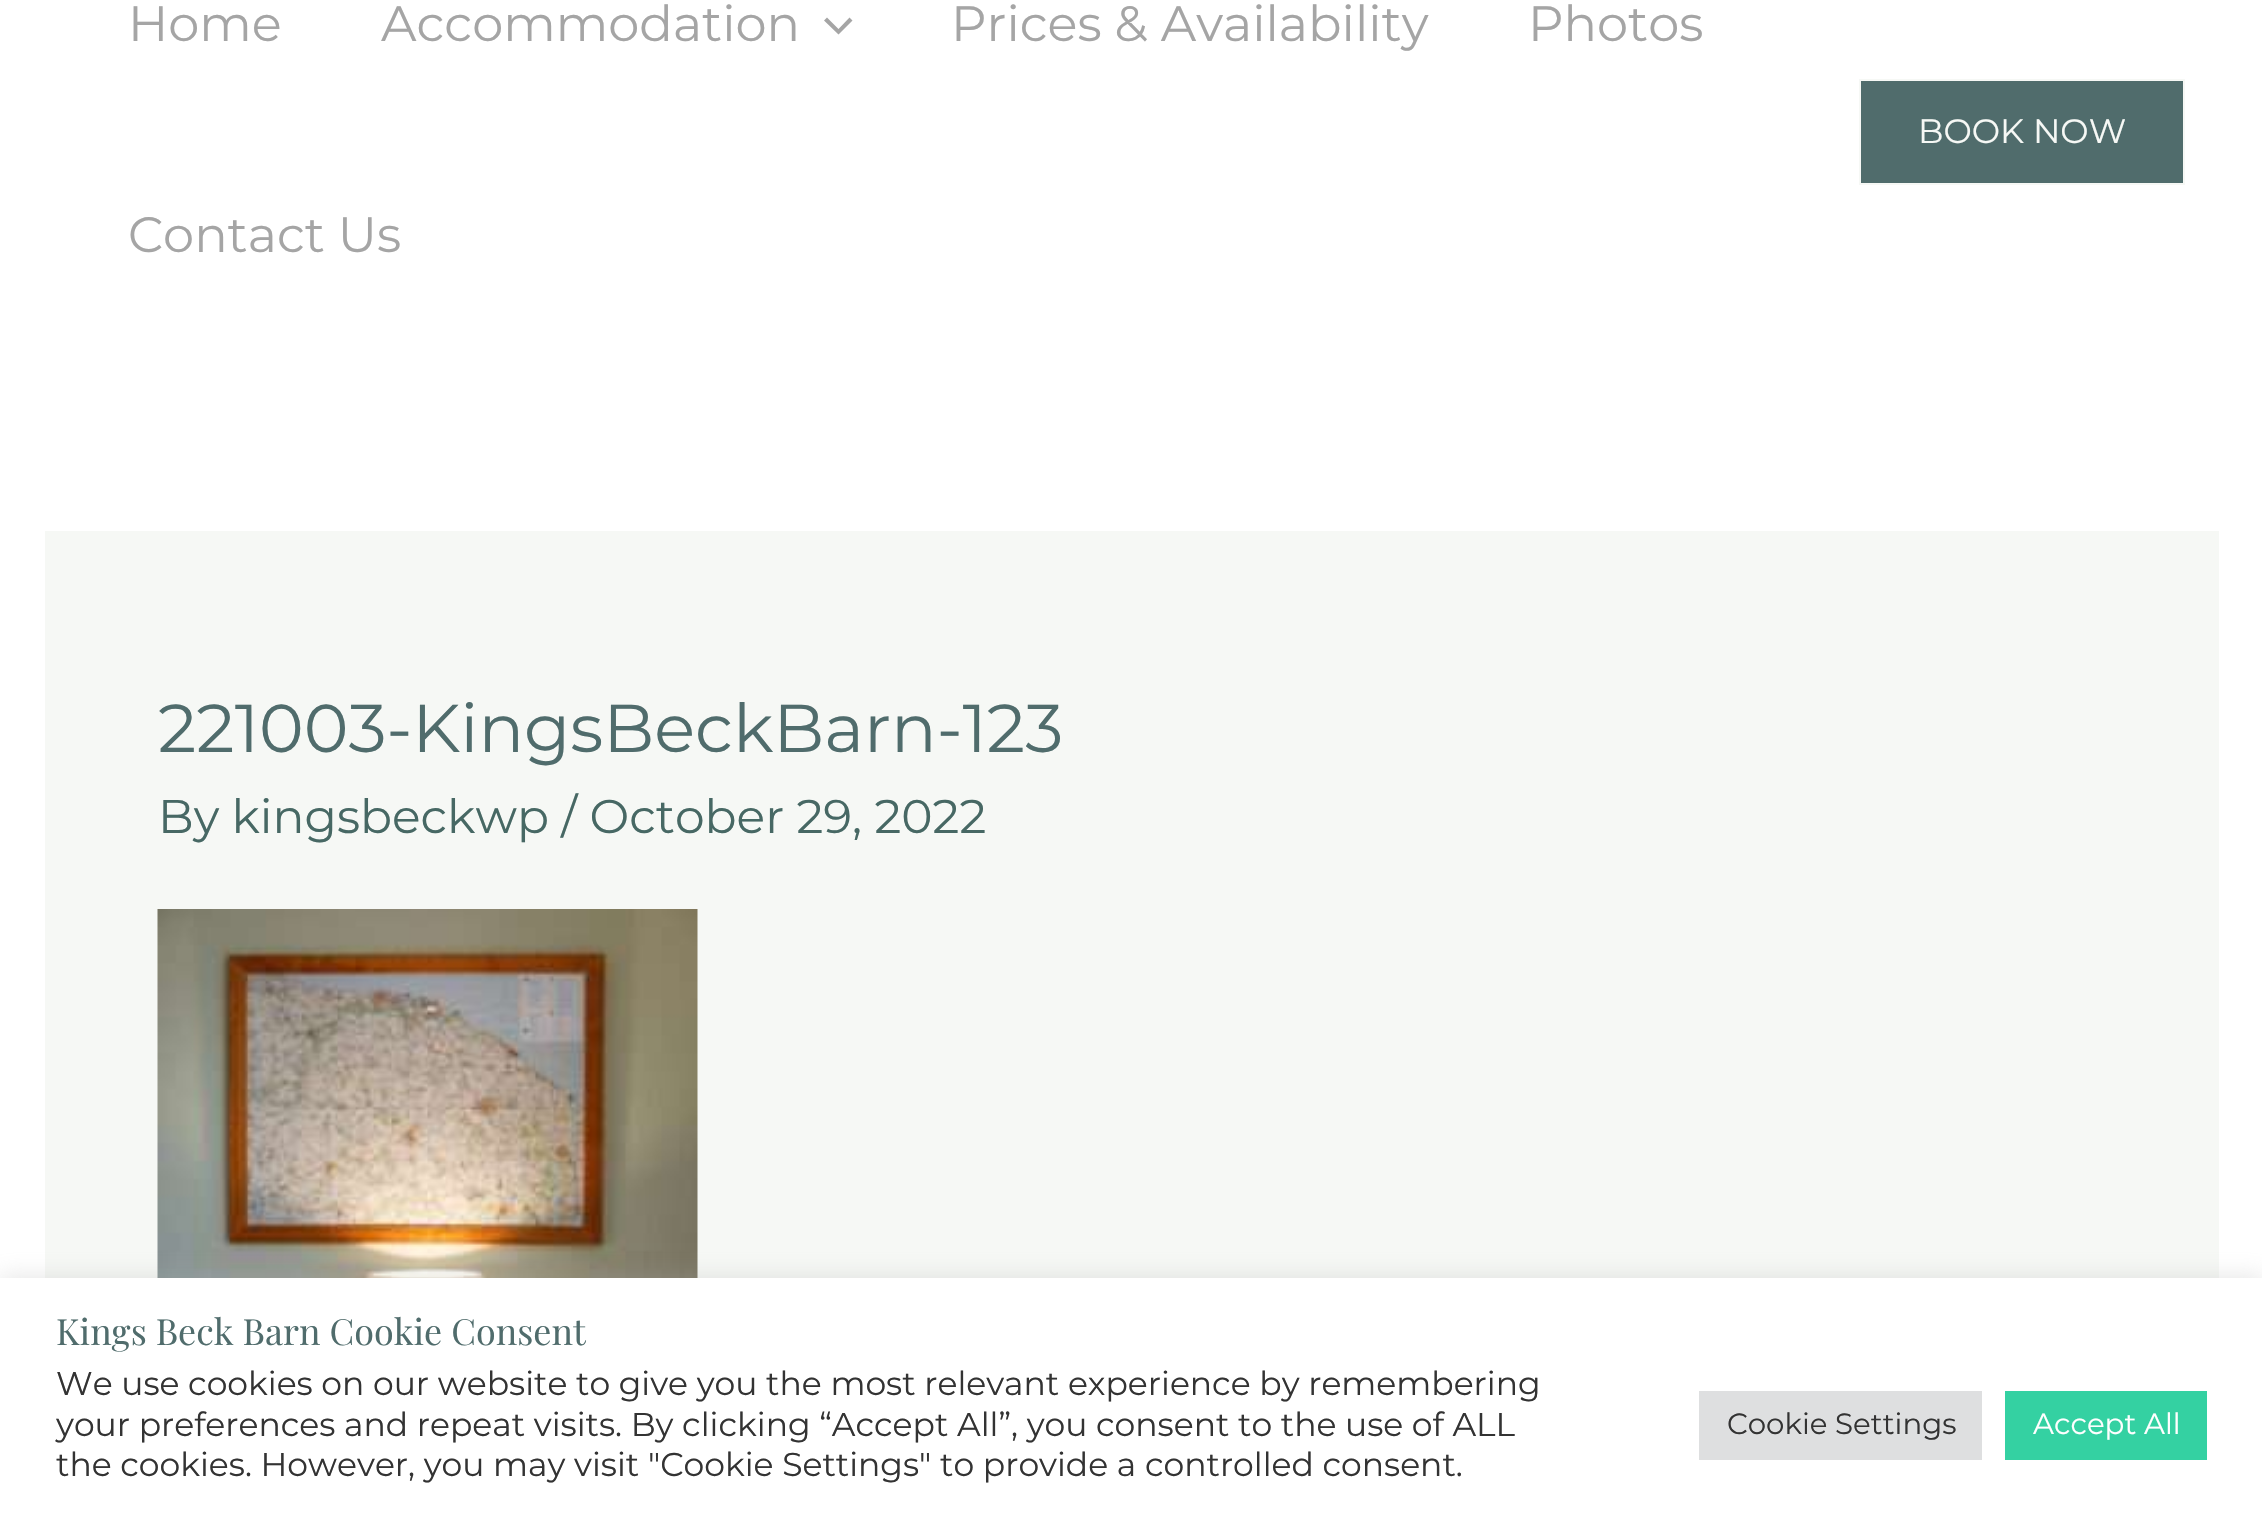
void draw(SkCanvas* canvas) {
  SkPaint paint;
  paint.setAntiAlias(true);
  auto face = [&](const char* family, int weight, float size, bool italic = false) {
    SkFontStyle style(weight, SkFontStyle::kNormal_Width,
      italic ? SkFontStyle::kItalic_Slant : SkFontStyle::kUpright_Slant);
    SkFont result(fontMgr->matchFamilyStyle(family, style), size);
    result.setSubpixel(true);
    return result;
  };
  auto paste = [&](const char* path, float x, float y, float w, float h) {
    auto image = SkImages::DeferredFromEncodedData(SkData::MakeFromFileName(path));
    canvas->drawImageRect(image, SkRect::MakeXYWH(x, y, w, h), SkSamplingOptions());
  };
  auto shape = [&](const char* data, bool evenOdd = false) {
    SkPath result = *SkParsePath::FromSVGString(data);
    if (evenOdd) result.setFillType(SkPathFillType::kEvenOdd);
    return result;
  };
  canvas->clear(0xffffffff);
  paint.setColor(0xffa5a5a5);
  canvas->drawPath(shape("M824 20.5L838.5 34.5L852.5 20.5L849.5 17.5L838.5 29L827 17.5Z"), paint);
  paint.setColor(0xff506c6c);
  canvas->drawRect(SkRect::MakeXYWH(1860, 80, 324, 104), paint);
  paint.setStroke(true);
  paint.setStrokeWidth(2);
  paint.setColor(0xfff6f8f5);
  canvas->drawRect(SkRect::MakeXYWH(1860, 80, 324, 104), paint);
  paint.setStroke(false);
  canvas->drawRect(SkRect::MakeXYWH(45, 531, 2174, 747), paint);
  paste("img/1.png", 157, 909, 541, 369);
  paint.setColor(0x4dacabab);
  paint.setMaskFilter(SkMaskFilter::MakeBlur(kNormal_SkBlurStyle, 11));
  canvas->drawRect(SkRect::MakeXYWH(0, 1276, 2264, 238), paint);
  paint.setMaskFilter(nullptr);
  {
    const struct { float x, y, w, h; SkColor color; } items[] = {
      {0, 1278, 2262, 237, 0xffffffff},
      {1699, 1391, 283, 69, 0xffdedfe0},
      {2005, 1391, 202, 69, 0xff34d1a2},
    };
    for (auto [x, y, w, h, color] : items) {
      paint.setColor(color);
      canvas->drawRect(SkRect::MakeXYWH(x, y, w, h), paint);
    }
  }
  auto f0 = face("Montserrat", 400, 49.5f);
  paint.setColor(0xffa5a5a5);
  {
    const struct { const char* s; float x, y; } items[] = {
      {"Home", 128, 41},
      {"Accommodation", 381, 41},
      {"Prices & Availability", 951, 41},
      {"Photos", 1528, 41},
      {"Contact Us", 128, 252},
    };
    for (auto [s, x, y] : items) {
      canvas->drawString(s, x, y, f0, paint);
    }
  }
  auto f1 = face("Montserrat", 400, 33.75f);
  paint.setColor(0xfff6f8f5);
  canvas->drawString("BOOK NOW", 1918, 143, f1, paint);
  auto f2 = face("Montserrat", 400, 67.5f);
  paint.setColor(0xff506c6c);
  canvas->drawString("221003-KingsBeckBarn-123", 158, 752, f2, paint);
  auto f3 = face("Montserrat", 400, 47.25f);
  paint.setColor(0xff476864);
  canvas->drawString("By kingsbeckwp / October 29, 2022", 158, 833, f3, paint);
  auto f4 = face("Playfair Display", 400, 36);
  paint.setColor(0xff506c6c);
  canvas->drawString("Kings Beck Barn Cookie Consent", 56, 1345, f4, paint);
  auto f5 = face("Montserrat", 400, 33);
  paint.setColor(0xff333333);
  {
    const struct { const char* s; float x, y; } items[] = {
      {"We use cookies on our website to give you the most relevant experience by remembering", 56, 1395},
      {"your preferences and repeat visits. By clicking “Accept All”, you consent to the use of ALL", 56, 1436},
      {"the cookies. However, you may visit \"Cookie Settings\" to provide a controlled consent.", 56, 1476},
    };
    for (auto [s, x, y] : items) {
      canvas->drawString(s, x, y, f5, paint);
    }
  }
  auto f6 = face("Montserrat", 400, 29.25f);
  canvas->drawString("Cookie Settings", 1727, 1434, f6, paint);
  paint.setColor(0xffffffff);
  canvas->drawString("Accept All", 2033, 1434, f6, paint);
}
